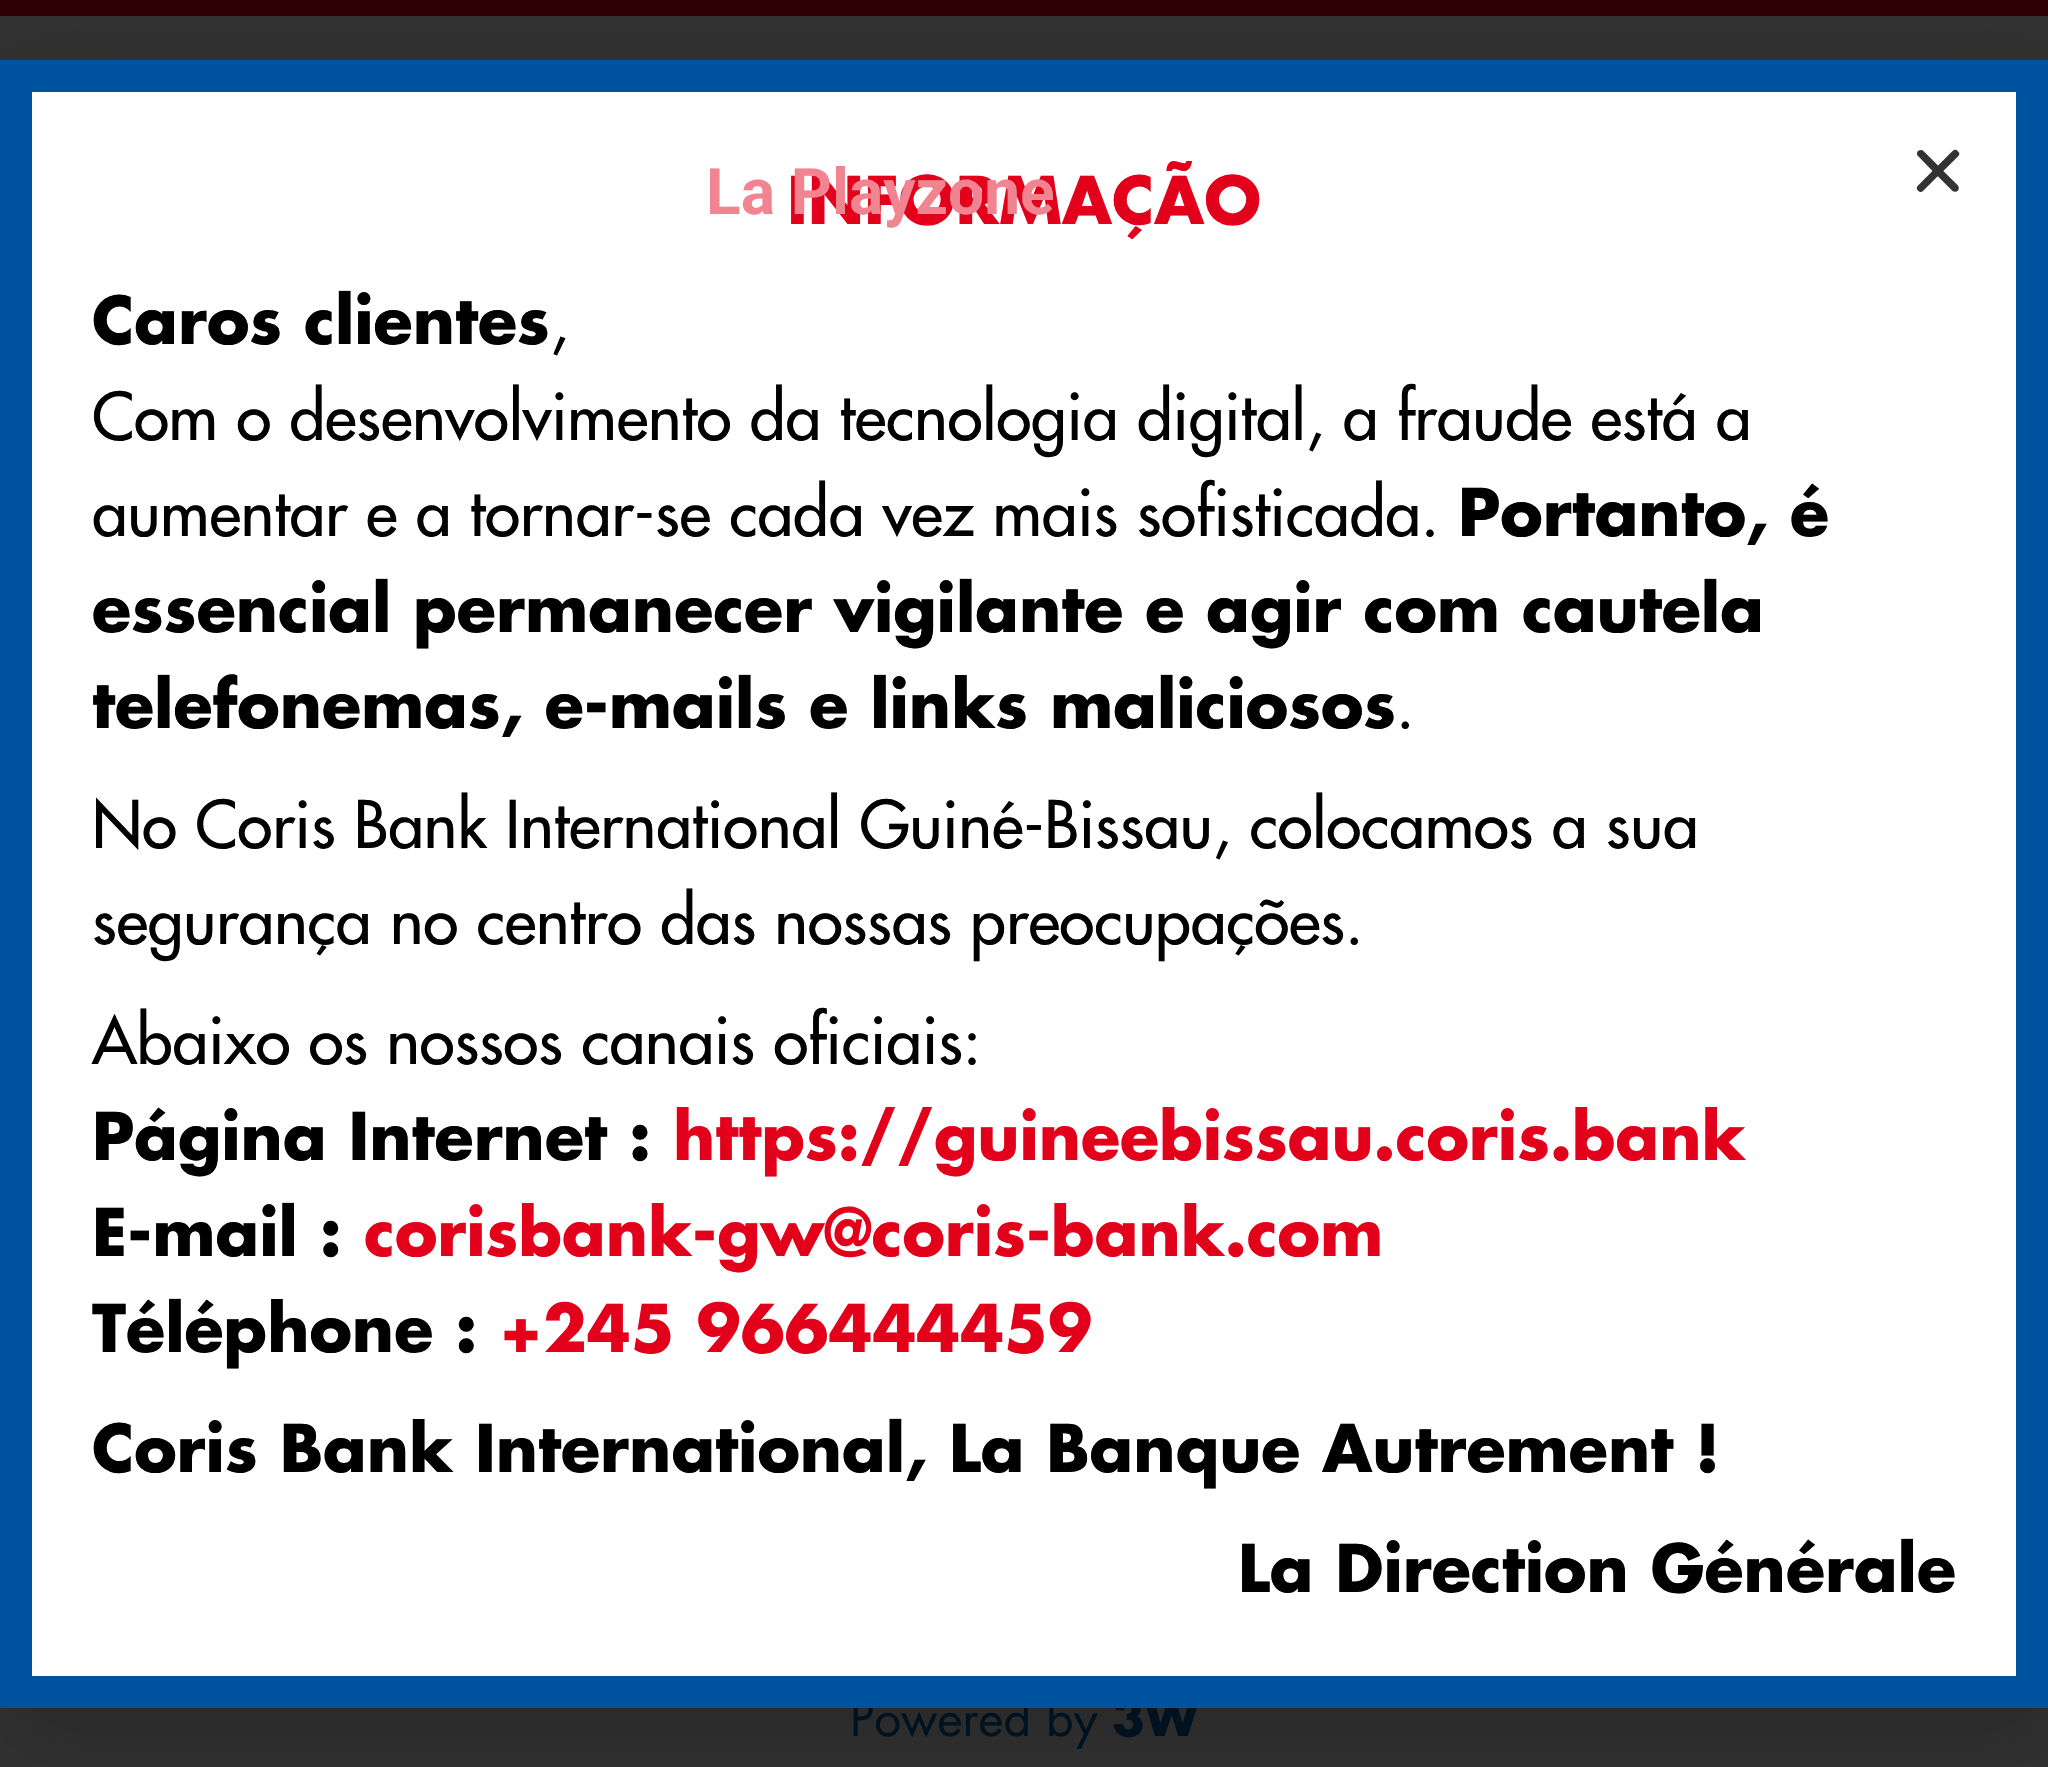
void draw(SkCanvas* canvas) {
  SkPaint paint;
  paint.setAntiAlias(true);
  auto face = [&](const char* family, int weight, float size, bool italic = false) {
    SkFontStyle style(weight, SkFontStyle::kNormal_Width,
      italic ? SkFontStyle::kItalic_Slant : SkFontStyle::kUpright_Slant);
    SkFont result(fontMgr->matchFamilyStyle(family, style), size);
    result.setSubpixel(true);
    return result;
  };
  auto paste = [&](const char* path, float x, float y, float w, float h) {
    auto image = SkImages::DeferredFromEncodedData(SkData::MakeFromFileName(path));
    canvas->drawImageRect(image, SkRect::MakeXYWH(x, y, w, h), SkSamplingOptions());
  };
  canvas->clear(0xff333333);
  paint.setColor(0xff2d0005);
  canvas->drawRect(SkRect::MakeXYWH(0, 0, 2048, 16), paint);
  paint.setColor(0x33000000);
  paint.setMaskFilter(SkMaskFilter::MakeBlur(kNormal_SkBlurStyle, 46));
  canvas->drawRect(SkRect::MakeXYWH(-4, 80, 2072, 1672), paint);
  paint.setMaskFilter(nullptr);
  auto f0 = face("Futura", 400, 48);
  paint.setColor(0xff001120);
  canvas->drawString("Powered by", 850, 1736, f0, paint);
  auto f1 = face("Futura", 700, 48);
  canvas->drawString("3W", 1112, 1736, f1, paint);
  paint.setColor(0xffffffff);
  canvas->drawRect(SkRect::MakeXYWH(16, 76, 2016, 1616), paint);
  paint.setStroke(true);
  paint.setStrokeWidth(32);
  paint.setColor(0xff00539f);
  canvas->drawRect(SkRect::MakeXYWH(16, 76, 2016, 1616), paint);
  auto f2 = face("Futura", 700, 64);
  paint.setStroke(false);
  paint.setColor(0xffe2001a);
  canvas->drawString("INFORMAÇÃO", 787, 224, f2, paint);
  auto f3 = face("Roboto", 700, 64);
  paint.setColor(0xfff18491);
  canvas->drawString("La Playzone", 706, 214, f3, paint);
  paste("img/1.png", 1916, 149, 44, 43);
  paint.setColor(0xff000000);
  canvas->drawString("La Direction Générale", 1238, 1592, f2, paint);
  canvas->drawString("Coris Bank International, La Banque Autrement !", 92, 1472, f2, paint);
  paint.setColor(0xffe2001a);
  canvas->drawString("+245 966444459", 499, 1352, f2, paint);
  paint.setColor(0xff000000);
  canvas->drawString("Téléphone :", 92, 1352, f2, paint);
  paint.setColor(0xffe2001a);
  canvas->drawString("corisbank-gw@coris-bank.com", 364, 1256, f2, paint);
  paint.setColor(0xff000000);
  canvas->drawString("E-mail :", 92, 1256, f2, paint);
  paint.setColor(0xffe2001a);
  canvas->drawString("https://guineebissau.coris.bank", 673, 1160, f2, paint);
  paint.setColor(0xff000000);
  canvas->drawString("Página Internet :", 92, 1160, f2, paint);
  auto f4 = face("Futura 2", 400, 64);
  {
    const struct { const char* s; float x, y; } items[] = {
      {"Abaixo os nossos canais oficiais:", 92, 1064},
      {"segurança no centro das nossas preocupações.", 92, 944},
      {"No Coris Bank International Guiné-Bissau, colocamos a sua", 92, 848},
      {".", 1396, 728},
    };
    for (auto [s, x, y] : items) {
      canvas->drawString(s, x, y, f4, paint);
    }
  }
  {
    const struct { const char* s; float x, y; } items[] = {
      {"telefonemas, e-mails e links maliciosos", 92, 728},
      {"essencial permanecer vigilante e agir com cautela", 92, 632},
      {"Portanto, é", 1458, 536},
    };
    for (auto [s, x, y] : items) {
      canvas->drawString(s, x, y, f2, paint);
    }
  }
  {
    const struct { const char* s; float x, y; } items[] = {
      {"aumentar e a tornar-se cada vez mais sofisticada.", 92, 536},
      {"Com o desenvolvimento da tecnologia digital, a fraude está a", 92, 440},
      {",", 550, 344},
    };
    for (auto [s, x, y] : items) {
      canvas->drawString(s, x, y, f4, paint);
    }
  }
  canvas->drawString("Caros clientes", 92, 344, f2, paint);
}
